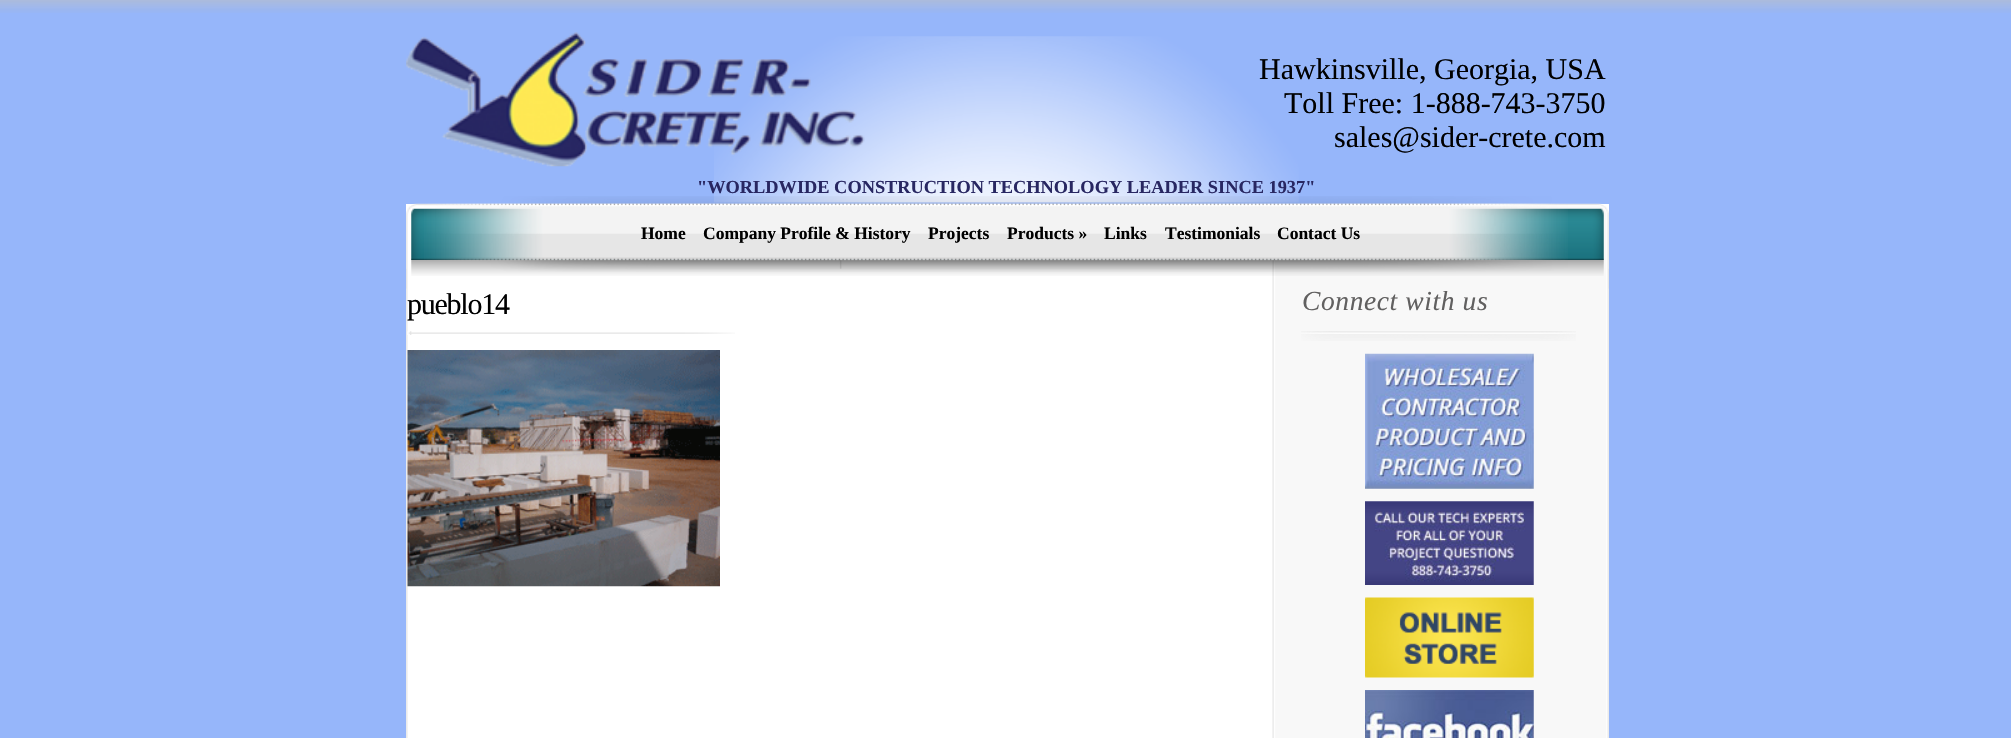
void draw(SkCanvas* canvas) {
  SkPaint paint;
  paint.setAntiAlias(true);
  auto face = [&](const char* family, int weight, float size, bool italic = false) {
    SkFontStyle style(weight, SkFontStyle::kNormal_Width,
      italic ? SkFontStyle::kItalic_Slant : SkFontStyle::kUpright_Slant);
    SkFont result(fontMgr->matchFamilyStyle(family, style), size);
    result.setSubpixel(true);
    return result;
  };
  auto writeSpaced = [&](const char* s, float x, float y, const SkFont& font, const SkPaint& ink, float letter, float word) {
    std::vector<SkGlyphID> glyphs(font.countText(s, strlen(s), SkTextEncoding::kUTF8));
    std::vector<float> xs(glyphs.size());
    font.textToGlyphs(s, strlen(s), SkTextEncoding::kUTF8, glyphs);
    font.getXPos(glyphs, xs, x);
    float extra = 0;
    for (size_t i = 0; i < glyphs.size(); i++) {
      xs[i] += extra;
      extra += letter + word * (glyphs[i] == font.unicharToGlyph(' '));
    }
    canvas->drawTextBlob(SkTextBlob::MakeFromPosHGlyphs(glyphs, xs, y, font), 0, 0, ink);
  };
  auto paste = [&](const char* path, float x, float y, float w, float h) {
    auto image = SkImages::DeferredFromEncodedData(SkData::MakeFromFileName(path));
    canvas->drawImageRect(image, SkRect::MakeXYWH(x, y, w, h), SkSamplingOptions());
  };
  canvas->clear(0xff96b6fa);
  paste("img/1.png", 0, 0, 2011, 13);
  paste("img/2.png", 714, 36, 585, 167);
  paste("img/3.png", 406, 32, 459, 135);
  paint.setColor(0xffffffff);
  canvas->drawRect(SkRect::MakeXYWH(406, 204, 1203, 534), paint);
  paste("img/5.png", 406, 203, 1203, 86);
  paste("img/6.png", 411, 208, 1193, 52);
  paste("img/8.png", 406, 268, 1203, 470);
  paste("img/7.png", 411, 258, 1193, 18);
  paste("img/4.png", 424, 196, 1144, 76);
  paste("img/9.png", 407, 331, 328, 4);
  paste("img/10.png", 407, 350, 313, 237);
  paste("img/11.png", 1301, 331, 275, 10);
  paste("img/12.png", 1365, 353, 169, 136);
  paste("img/13.png", 1365, 501, 169, 84);
  paste("img/14.png", 1365, 597, 169, 81);
  paste("img/15.png", 1365, 690, 169, 48);
  auto f0 = face("Liberation Serif", 400, 30);
  paint.setColor(0xff000000);
  {
    const struct { const char* s; float x, y; } items[] = {
      {"Hawkinsville, Georgia, USA", 1259, 79},
      {"Toll Free: 1-888-743-3750", 1284, 113},
      {"sales@sider-crete.com", 1334, 147},
    };
    for (auto [s, x, y] : items) {
      canvas->drawString(s, x, y, f0, paint);
    }
  }
  auto f1 = face("Liberation Serif", 700, 18.35f);
  paint.setColor(0xff282762);
  canvas->drawString("\"WORLDWIDE CONSTRUCTION TECHNOLOGY LEADER SINCE 1937\"", 697, 193, f1, paint);
  auto f2 = face("Liberation Serif", 700, 17.5f);
  paint.setColor(0xff000000);
  {
    const struct { const char* s; float x, y; } items[] = {
      {"Home", 641, 239},
      {"Company Profile & History", 703, 239},
      {"Projects", 928, 239},
      {"Products »", 1007, 239},
      {"Links", 1104, 239},
      {"Testimonials", 1165, 239},
      {"Contact Us", 1277, 239},
    };
    for (auto [s, x, y] : items) {
      canvas->drawString(s, x, y, f2, paint);
    }
  }
  writeSpaced("pueblo14", 407, 314, f0, paint, -1.25f, 0);
  auto f3 = face("Liberation Serif", 400, 27.5f, true);
  paint.setColor(0xff616060);
  writeSpaced("Connect with us", 1302, 310, f3, paint, 0.6f, 0);
}
